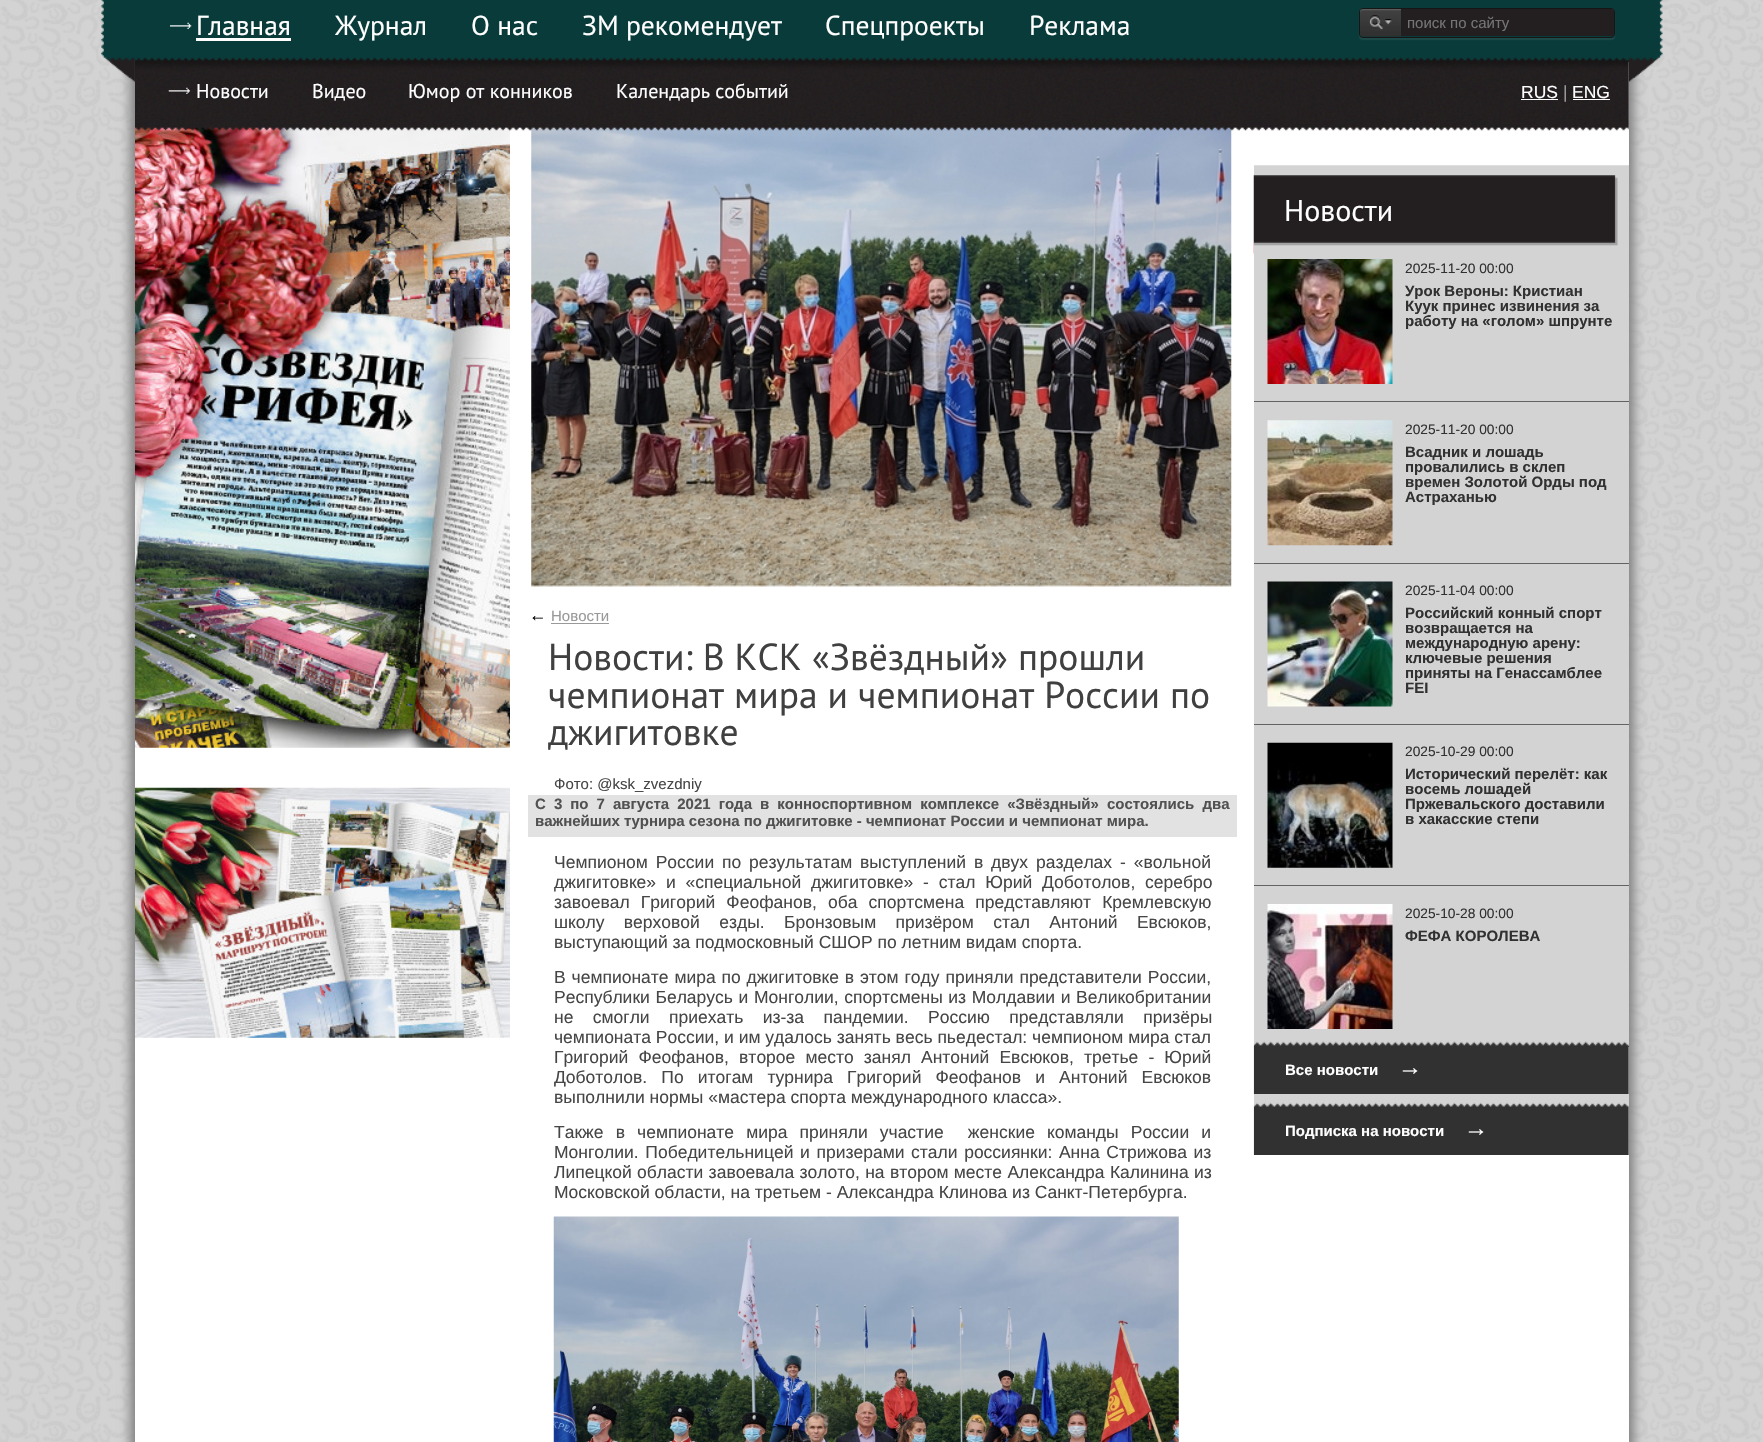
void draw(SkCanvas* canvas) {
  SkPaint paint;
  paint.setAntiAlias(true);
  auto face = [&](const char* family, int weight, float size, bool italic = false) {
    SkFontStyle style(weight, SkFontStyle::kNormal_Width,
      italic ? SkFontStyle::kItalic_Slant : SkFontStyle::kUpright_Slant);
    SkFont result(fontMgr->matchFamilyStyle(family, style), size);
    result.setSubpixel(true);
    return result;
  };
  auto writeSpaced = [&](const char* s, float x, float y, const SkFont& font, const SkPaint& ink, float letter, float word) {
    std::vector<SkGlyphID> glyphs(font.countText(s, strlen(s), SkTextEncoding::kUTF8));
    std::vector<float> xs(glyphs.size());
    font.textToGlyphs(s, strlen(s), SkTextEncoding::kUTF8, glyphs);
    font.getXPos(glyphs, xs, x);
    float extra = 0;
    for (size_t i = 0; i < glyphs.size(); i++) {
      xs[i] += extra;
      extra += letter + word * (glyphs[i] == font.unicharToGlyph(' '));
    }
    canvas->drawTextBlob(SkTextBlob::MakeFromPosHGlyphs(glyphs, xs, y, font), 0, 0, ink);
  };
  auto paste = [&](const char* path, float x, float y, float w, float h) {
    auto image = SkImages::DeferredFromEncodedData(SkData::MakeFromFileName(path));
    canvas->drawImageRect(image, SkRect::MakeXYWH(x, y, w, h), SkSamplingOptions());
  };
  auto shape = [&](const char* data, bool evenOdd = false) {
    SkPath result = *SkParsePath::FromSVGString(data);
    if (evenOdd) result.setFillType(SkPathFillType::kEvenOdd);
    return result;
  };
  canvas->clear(0xffffffff);
  paste("img/1.png", 0, 0, 1763, 1442);
  paint.setColor(0xff818181);
  paint.setMaskFilter(SkMaskFilter::MakeBlur(kNormal_SkBlurStyle, 5));
  canvas->drawRect(SkRect::MakeXYWH(130, -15, 1504, 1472), paint);
  paint.setMaskFilter(nullptr);
  paint.setColor(0xffffffff);
  canvas->drawRect(SkRect::MakeXYWH(135, 62, 1494, 1380), paint);
  paint.setColor(0xff093b3a);
  canvas->drawRect(SkRect::MakeXYWH(135, 0, 1494, 62), paint);
  paste("img/7.png", 135, 127, 375, 621);
  paste("img/9.png", 531, 127, 701, 460);
  paint.setColor(0xffd3d3d3);
  canvas->drawRect(SkRect::MakeXYWH(1254, 123, 375, 1032), paint);
  paint.setColor(0xffffffff);
  canvas->drawRect(SkRect::MakeXYWH(1254, 124, 375, 41), paint);
  paste("img/6.png", 135, 57, 1494, 74);
  paste("img/2.png", 101, 0, 1562, 82);
  paste("img/3.png", 170, 22, 22, 7);
  canvas->drawRect(SkRect::MakeXYWH(196, 38, 95, 3), paint);
  paste("img/4.png", 168, 87, 22, 7);
  canvas->save();
  canvas->clipPath(shape("M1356 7H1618V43H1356ZM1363 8H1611C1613 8 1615 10 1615 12V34C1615 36 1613 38 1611 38H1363C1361 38 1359 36 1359 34V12C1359 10 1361 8 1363 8Z", true), true);
  paint.setColor(0xff1c4a49);
  paint.setMaskFilter(SkMaskFilter::MakeBlur(kNormal_SkBlurStyle, 0.5f));
  canvas->drawRoundRect(SkRect::MakeXYWH(1359, 10, 256, 30), 4, 4, paint);
  paint.setMaskFilter(nullptr);
  canvas->restore();
  paint.setStroke(true);
  paint.setStrokeWidth(1);
  paint.setColor(0xff161616);
  canvas->drawRoundRect(SkRect::MakeXYWH(1359.5f, 8.5f, 255, 29), 3.5f, 3.5f, paint);
  paste("img/5.png", 1360, 9, 42, 28);
  paint.setStroke(false);
  {
    const struct { float x, y, w, h; SkColor color; } items[] = {
      {1401, 9, 213, 27, 0xff231f20},
      {1521, 99, 37, 1, 0xffffffff},
      {1573, 99, 37, 1, 0xffffffff},
    };
    for (auto [x, y, w, h, color] : items) {
      paint.setColor(color);
      canvas->drawRect(SkRect::MakeXYWH(x, y, w, h), paint);
    }
  }
  paste("img/8.png", 135, 787, 375, 251);
  paint.setColor(0xff999999);
  canvas->drawRect(SkRect::MakeXYWH(551, 623, 58, 1), paint);
  paint.setColor(0xffe2e2e2);
  canvas->drawRect(SkRect::MakeXYWH(528, 795, 709, 42), paint);
  paste("img/10.png", 553, 1216, 626, 226);
  paste("img/11.png", 1254, 165, 375, 1);
  paste("img/12.png", 1253, 175, 365, 79);
  paint.setColor(0xff626262);
  canvas->drawRect(SkRect::MakeXYWH(1254, 401, 375, 1), paint);
  paste("img/13.png", 1267, 259, 126, 125);
  canvas->drawRect(SkRect::MakeXYWH(1254, 563, 375, 1), paint);
  paste("img/14.png", 1267, 420, 126, 126);
  canvas->drawRect(SkRect::MakeXYWH(1254, 724, 375, 1), paint);
  paste("img/15.png", 1267, 581, 126, 126);
  canvas->drawRect(SkRect::MakeXYWH(1254, 885, 375, 1), paint);
  paste("img/16.png", 1267, 742, 126, 126);
  canvas->drawRect(SkRect::MakeXYWH(1628, 1046, 1, 1), paint);
  paste("img/17.png", 1267, 904, 126, 125);
  paste("img/18.png", 1253, 1041, 376, 53);
  paste("img/19.png", 1253, 1102, 376, 53);
  auto f0 = face("PT Sans", 400, 27.5f);
  paint.setColor(0xffffffff);
  canvas->drawString("Главная", 196, 35, f0, paint);
  auto f1 = face("PT Sans", 400, 20);
  {
    const struct { const char* s; float x, y; } items[] = {
      {"Новости", 196, 98},
      {"Видео", 312, 98},
      {"Юмор от конников", 408, 98},
      {"Календарь событий", 616, 98},
    };
    for (auto [s, x, y] : items) {
      canvas->drawString(s, x, y, f1, paint);
    }
  }
  {
    const struct { const char* s; float x, y; } items[] = {
      {"Журнал", 335, 35},
      {"О нас", 471, 35},
      {"ЗМ рекомендует", 582, 35},
      {"Спецпроекты", 825, 35},
      {"Реклама", 1029, 35},
    };
    for (auto [s, x, y] : items) {
      canvas->drawString(s, x, y, f0, paint);
    }
  }
  auto f2 = face("Liberation Sans", 400, 15);
  paint.setColor(0xff757575);
  canvas->drawString("поиск по сайту", 1407, 28, f2, paint);
  auto f3 = face("Liberation Sans", 400, 17.5f);
  paint.setColor(0xffffffff);
  canvas->drawString("RUS", 1521, 98, f3, paint);
  paint.setColor(0xff999999);
  canvas->drawString("|", 1563, 98, f3, paint);
  paint.setColor(0xffffffff);
  canvas->drawString("ENG", 1572, 98, f3, paint);
  paint.setColor(0xff000000);
  canvas->drawString("←", 529, 621, f3, paint);
  paint.setColor(0xff999999);
  canvas->drawString("Новости", 551, 621, f2, paint);
  auto f4 = face("PT Sans", 400, 37.5f);
  paint.setColor(0xff404041);
  {
    const struct { const char* s; float x, y; } items[] = {
      {"Новости: В КСК «Звёздный» прошли", 548, 670},
      {"чемпионат мира и чемпионат России по", 548, 708},
      {"джигитовке", 548, 745},
    };
    for (auto [s, x, y] : items) {
      canvas->drawString(s, x, y, f4, paint);
    }
  }
  paint.setColor(0xff464646);
  canvas->drawString("Фото: @ksk_zvezdniy", 554, 789, f2, paint);
  auto f5 = face("Liberation Sans", 700, 15);
  paint.setColor(0xff515151);
  writeSpaced("С 3 по 7 августа 2021 года в конноспортивном комплексе «Звёздный» состоялись два", 535, 809, f5, paint, 0, 3.9f);
  canvas->drawString("важнейших турнира сезона по джигитовке - чемпионат России и чемпионат мира.", 535, 826, f5, paint);
  paint.setColor(0xff464646);
  writeSpaced("Чемпионом России по результатам выступлений в двух разделах - «вольной", 554, 868, f3, paint, 0, 3);
  writeSpaced("джигитовке» и «специальной джигитовке» - стал Юрий Доботолов, серебро", 554, 888, f3, paint, 0, 5);
  writeSpaced("завоевал Григорий Феофанов, оба спортсмена представляют Кремлевскую", 554, 908, f3, paint, 0, 6.25f);
  writeSpaced("школу верховой езды. Бронзовым призёром стал Антоний Евсюков,", 554, 928, f3, paint, 0, 14.5f);
  canvas->drawString("выступающий за подмосковный СШОР по летним видам спорта.", 554, 948, f3, paint);
  writeSpaced("В чемпионате мира по джигитовке в этом году приняли представители России,", 554, 983, f3, paint, 0, 1);
  writeSpaced("Республики Беларусь и Монголии, спортсмены из Молдавии и Великобритании", 554, 1003, f3, paint, 0, 0.75f);
  writeSpaced("не смогли приехать из-за пандемии. Россию представляли призёры", 554, 1023, f3, paint, 0, 14.5f);
  canvas->drawString("чемпионата России, и им удалось занять весь пьедестал: чемпионом мира стал", 554, 1043, f3, paint);
  writeSpaced("Григорий Феофанов, второе место занял Антоний Евсюков, третье - Юрий", 554, 1063, f3, paint, 0, 5.25f);
  writeSpaced("Доботолов. По итогам турнира Григорий Феофанов и Антоний Евсюков", 554, 1083, f3, paint, 0, 9.25f);
  canvas->drawString("выполнили нормы «мастера спорта международного класса».", 554, 1103, f3, paint);
  writeSpaced("Также в чемпионате мира приняли участие  женские команды России и", 554, 1138, f3, paint, 0, 7.25f);
  writeSpaced("Монголии. Победительницей и призерами стали россиянки: Анна Стрижова из", 554, 1158, f3, paint, 0, 1.75f);
  writeSpaced("Липецкой области завоевала золото, на втором месте Александра Калинина из", 554, 1178, f3, paint, 0, 0.5f);
  canvas->drawString("Московской области, на третьем - Александра Клинова из Санкт-Петербурга.", 554, 1198, f3, paint);
  auto f6 = face("PT Sans", 400, 30);
  paint.setColor(0xffffffff);
  canvas->drawString("Новости", 1284, 221, f6, paint);
  auto f7 = face("Liberation Sans", 400, 13.75f);
  paint.setColor(0xff313131);
  canvas->drawString("2025-11-20 00:00", 1405, 273, f7, paint);
  {
    const struct { const char* s; float x, y; } items[] = {
      {"Урок Вероны: Кристиан", 1405, 296},
      {"Куук принес извинения за", 1405, 311},
      {"работу на «голом» шпрунте", 1405, 326},
    };
    for (auto [s, x, y] : items) {
      canvas->drawString(s, x, y, f5, paint);
    }
  }
  canvas->drawString("2025-11-20 00:00", 1405, 434, f7, paint);
  {
    const struct { const char* s; float x, y; } items[] = {
      {"Всадник и лошадь", 1405, 457},
      {"провалились в склеп", 1405, 472},
      {"времен Золотой Орды под", 1405, 487},
      {"Астраханью", 1405, 502},
    };
    for (auto [s, x, y] : items) {
      canvas->drawString(s, x, y, f5, paint);
    }
  }
  canvas->drawString("2025-11-04 00:00", 1405, 595, f7, paint);
  {
    const struct { const char* s; float x, y; } items[] = {
      {"Российский конный спорт", 1405, 618},
      {"возвращается на", 1405, 633},
      {"международную арену:", 1405, 648},
      {"ключевые решения", 1405, 663},
      {"приняты на Генассамблее", 1405, 678},
      {"FEI", 1405, 693},
    };
    for (auto [s, x, y] : items) {
      canvas->drawString(s, x, y, f5, paint);
    }
  }
  canvas->drawString("2025-10-29 00:00", 1405, 756, f7, paint);
  {
    const struct { const char* s; float x, y; } items[] = {
      {"Исторический перелёт: как", 1405, 779},
      {"восемь лошадей", 1405, 794},
      {"Пржевальского доставили", 1405, 809},
      {"в хакасские степи", 1405, 824},
    };
    for (auto [s, x, y] : items) {
      canvas->drawString(s, x, y, f5, paint);
    }
  }
  canvas->drawString("2025-10-28 00:00", 1405, 918, f7, paint);
  canvas->drawString("ФЕФА КОРОЛЕВА", 1405, 941, f5, paint);
  paint.setColor(0xffffffff);
  canvas->drawString("Все новости", 1285, 1075, f5, paint);
  auto f8 = face("Liberation Sans", 700, 24);
  canvas->drawString("→", 1398, 1075, f8, paint);
  canvas->drawString("Подписка на новости", 1285, 1136, f5, paint);
  canvas->drawString("→", 1464, 1136, f8, paint);
}
